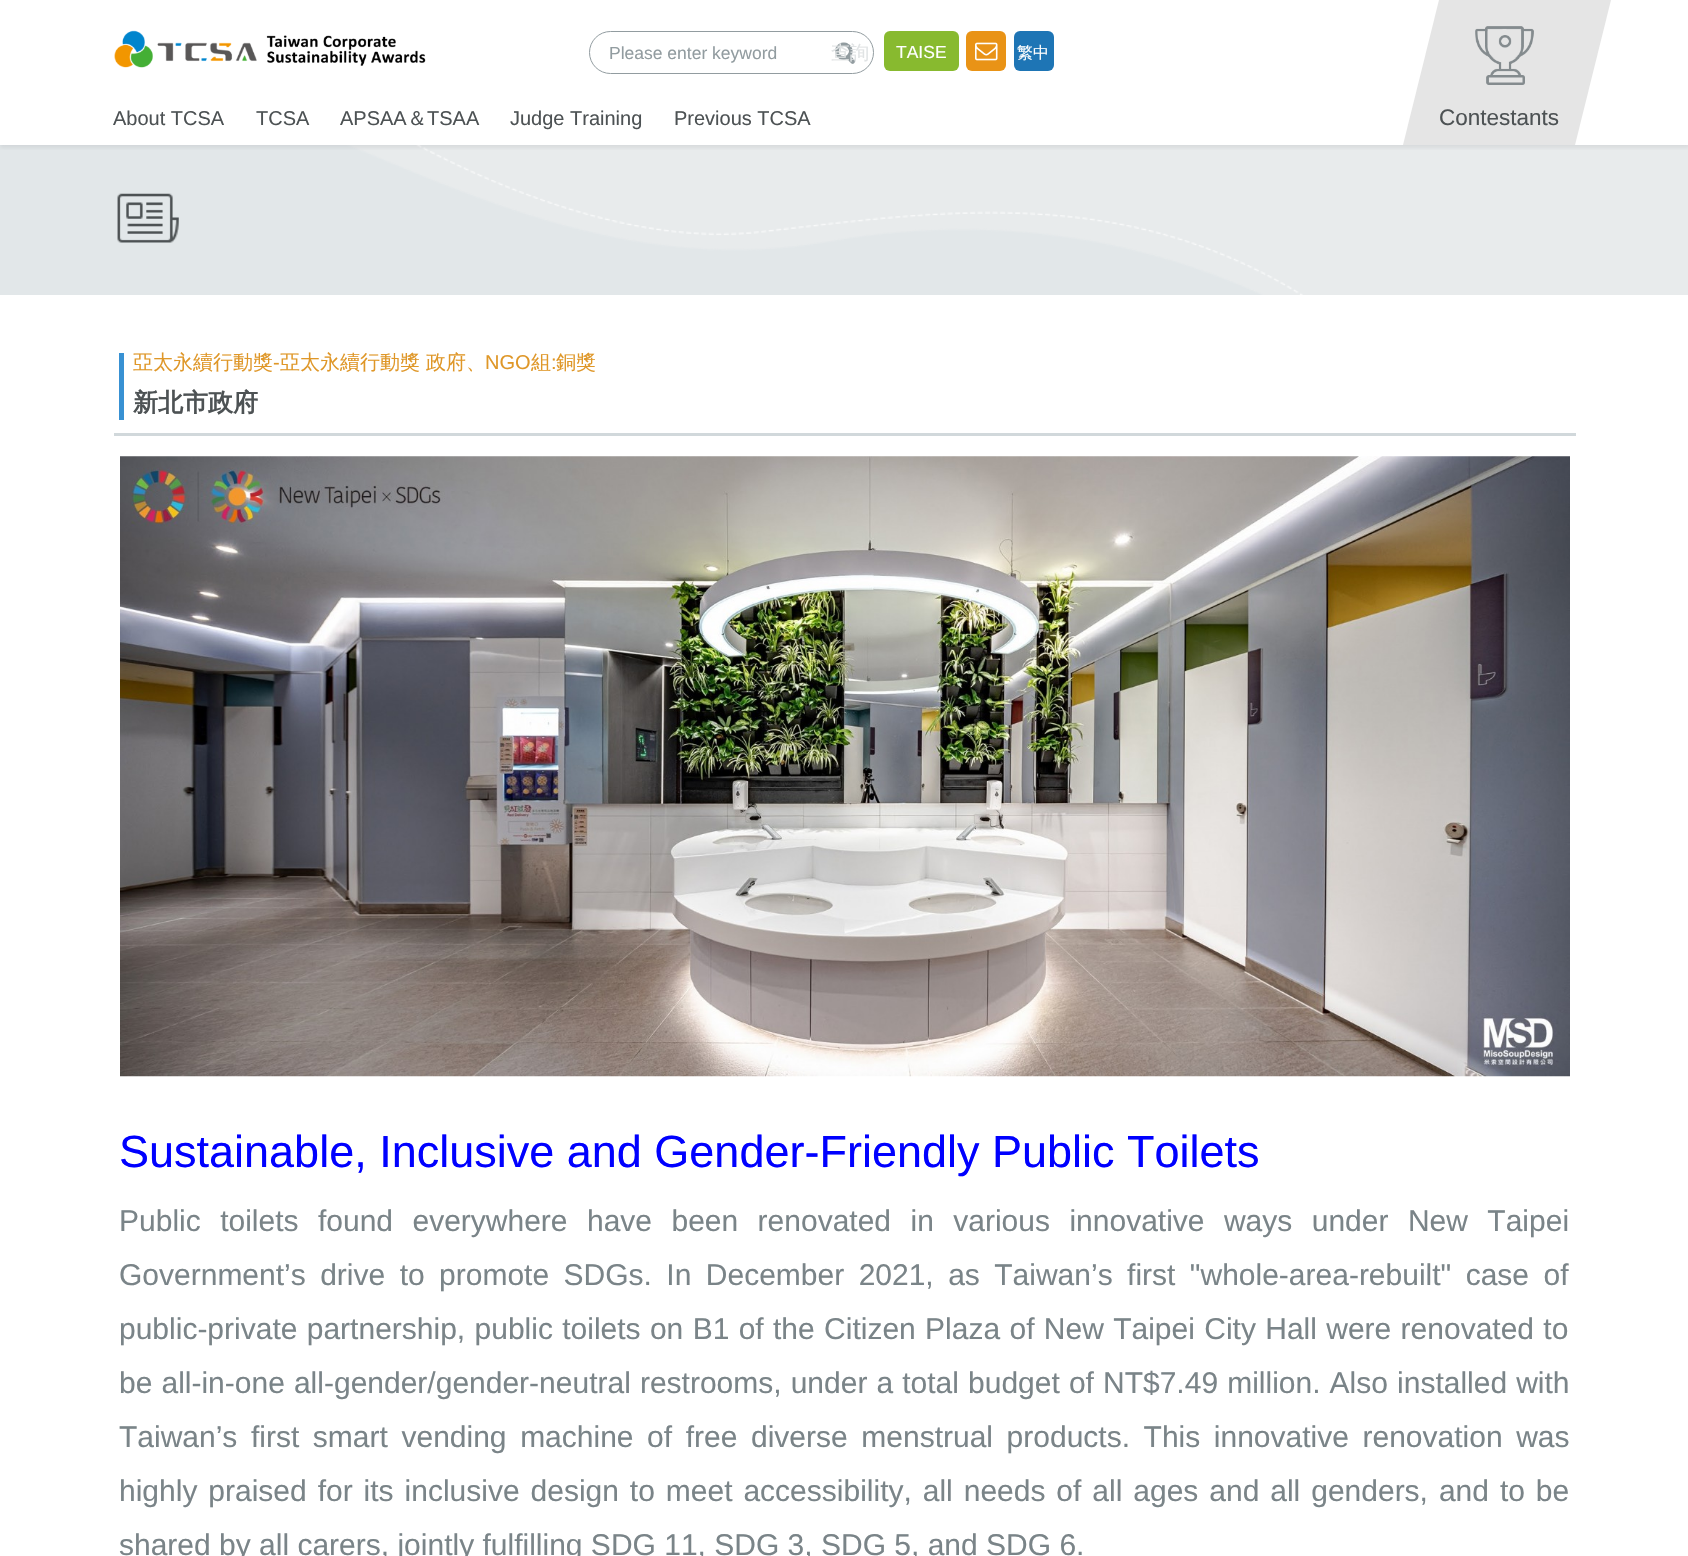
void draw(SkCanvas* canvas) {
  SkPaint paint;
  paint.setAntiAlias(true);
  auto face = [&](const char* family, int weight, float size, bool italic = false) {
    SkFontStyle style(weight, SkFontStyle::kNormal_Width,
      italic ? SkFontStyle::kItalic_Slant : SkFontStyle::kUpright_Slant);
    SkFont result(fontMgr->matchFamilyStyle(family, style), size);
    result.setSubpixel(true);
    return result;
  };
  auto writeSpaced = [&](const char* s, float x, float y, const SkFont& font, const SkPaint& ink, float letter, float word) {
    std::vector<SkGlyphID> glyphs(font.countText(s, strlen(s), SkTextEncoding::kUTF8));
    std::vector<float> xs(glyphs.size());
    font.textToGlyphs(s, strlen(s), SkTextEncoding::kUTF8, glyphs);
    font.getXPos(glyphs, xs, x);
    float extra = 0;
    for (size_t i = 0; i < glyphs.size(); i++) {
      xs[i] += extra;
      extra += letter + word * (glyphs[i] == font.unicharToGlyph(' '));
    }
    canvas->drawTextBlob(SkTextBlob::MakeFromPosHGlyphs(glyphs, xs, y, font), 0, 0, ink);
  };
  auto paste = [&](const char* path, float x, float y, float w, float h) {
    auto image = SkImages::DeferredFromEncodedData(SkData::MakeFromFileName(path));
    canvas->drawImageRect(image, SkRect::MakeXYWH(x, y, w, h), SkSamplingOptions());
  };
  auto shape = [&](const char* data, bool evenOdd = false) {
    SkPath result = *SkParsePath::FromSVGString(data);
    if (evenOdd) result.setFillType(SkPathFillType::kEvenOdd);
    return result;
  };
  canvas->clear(0xffffffff);
  paint.setColor(0xffe8ebec);
  canvas->drawRect(SkRect::MakeXYWH(347, 145, 1341, 150), paint);
  paste("img/5.png", 0, 145, 1303, 150);
  canvas->save();
  canvas->clipRect(SkRect::MakeXYWH(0, 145, 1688, 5));
  paint.setColor(0x1a42494b);
  paint.setMaskFilter(SkMaskFilter::MakeBlur(kNormal_SkBlurStyle, 2));
  canvas->drawRect(SkRect::MakeXYWH(0, 3, 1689, 145), paint);
  paint.setMaskFilter(nullptr);
  canvas->restore();
  paste("img/1.png", 114, 30, 312, 38);
  paint.setStroke(true);
  paint.setStrokeWidth(1);
  paint.setColor(0xff929ca0);
  canvas->drawRoundRect(SkRect::MakeXYWH(589.5f, 31.5f, 284, 42), 21, 21, paint);
  paste("img/2.png", 835, 42, 20, 22);
  paint.setStroke(false);
  paint.setColor(0xff88ba2f);
  canvas->drawRoundRect(SkRect::MakeXYWH(884, 31, 75, 40), 6, 6, paint);
  paint.setColor(0xffe99316);
  canvas->drawRoundRect(SkRect::MakeXYWH(966, 31, 40, 40), 6, 6, paint);
  paste("img/3.png", 975, 42, 23, 19);
  paint.setColor(0xff1e75b5);
  canvas->drawRoundRect(SkRect::MakeXYWH(1014, 31, 40, 40), 6, 6, paint);
  paint.setColor(0xffe5e5e5);
  canvas->drawPath(shape("M1439 0H1611L1575 145H1403Z"), paint);
  paste("img/4.png", 1475, 26, 59, 59);
  paste("img/6.png", 117, 193, 62, 50);
  paint.setColor(0xffd1d8db);
  canvas->drawRect(SkRect::MakeXYWH(114, 433, 1462, 3), paint);
  paint.setColor(0xff3891d3);
  canvas->drawRect(SkRect::MakeXYWH(119, 353, 5, 67), paint);
  paste("img/7.png", 120, 456, 1450, 621);
  auto f0 = face("Liberation Sans", 400, 17.5f);
  paint.setColor(0xff929ca0);
  canvas->drawString("Please enter keyword", 609, 59, f0, paint);
  auto f1 = face("WenQuanYi Zen Hei", 500, 19);
  paint.setColor(0xffe0e3e4);
  canvas->drawString("查詢", 831, 59, f1, paint);
  paint.setColor(0xffffffff);
  canvas->drawString("TAISE", 896, 58, f0, paint);
  auto f2 = face("WenQuanYi Zen Hei", 500, 16);
  canvas->drawString("繁中", 1017, 58, f2, paint);
  auto f3 = face("Liberation Sans", 400, 20);
  paint.setColor(0xff4d5254);
  {
    const struct { const char* s; float x, y; } items[] = {
      {"About TCSA", 113, 125},
      {"TCSA", 256, 125},
      {"APSAA", 340, 125},
    };
    for (auto [s, x, y] : items) {
      canvas->drawString(s, x, y, f3, paint);
    }
  }
  auto f4 = face("WenQuanYi Zen Hei", 500, 20);
  canvas->drawString("＆", 407, 125, f4, paint);
  {
    const struct { const char* s; float x, y; } items[] = {
      {"TSAA", 427, 125},
      {"Judge Training", 510, 125},
      {"Previous TCSA", 674, 125},
    };
    for (auto [s, x, y] : items) {
      canvas->drawString(s, x, y, f3, paint);
    }
  }
  auto f5 = face("Liberation Sans", 400, 22.5f);
  canvas->drawString("Contestants", 1439, 125, f5, paint);
  paint.setColor(0xffdf9728);
  canvas->drawString("亞太永續行動獎", 133, 369, f4, paint);
  canvas->drawString("-", 273, 369, f3, paint);
  canvas->drawString("亞太永續行動獎 政府、", 280, 369, f4, paint);
  canvas->drawString("NGO", 485, 369, f3, paint);
  canvas->drawString("組", 531, 369, f4, paint);
  canvas->drawString(":", 551, 369, f3, paint);
  canvas->drawString("銅獎", 556, 369, f4, paint);
  auto f6 = face("WenQuanYi Zen Hei", 700, 25);
  paint.setColor(0xff4d5254);
  canvas->drawString("新北市政府", 133, 411, f6, paint);
  auto f7 = face("Liberation Sans", 400, 45);
  paint.setColor(0xff0000ff);
  canvas->drawString("Sustainable, Inclusive and Gender-Friendly Public Toilets", 119, 1167, f7, paint);
  auto f8 = face("Liberation Sans", 400, 30);
  paint.setColor(0xff7a8488);
  writeSpaced("Public toilets found everywhere have been renovated in various innovative ways under New Taipei", 119, 1231, f8, paint, 0, 11.1f);
  writeSpaced("Government’s drive to promote SDGs. In December 2021, as Taiwan’s first \"whole-area-rebuilt\" case of", 119, 1285, f8, paint, 0, 6.1f);
  writeSpaced("public-private partnership, public toilets on B1 of the Citizen Plaza of New Taipei City Hall were renovated to", 119, 1339, f8, paint, 0, 1);
  writeSpaced("be all-in-one all-gender/gender-neutral restrooms, under a total budget of NT$7.49 million. Also installed with", 119, 1393, f8, paint, 0, 0.75f);
  writeSpaced("Taiwan’s first smart vending machine of free diverse menstrual products. This innovative renovation was", 119, 1447, f8, paint, 0, 5.25f);
  writeSpaced("highly praised for its inclusive design to meet accessibility, all needs of all ages and all genders, and to be", 119, 1501, f8, paint, 0, 2.6f);
  canvas->drawString("shared by all carers, jointly fulfilling SDG 11, SDG 3, SDG 5, and SDG 6.", 119, 1555, f8, paint);
}
